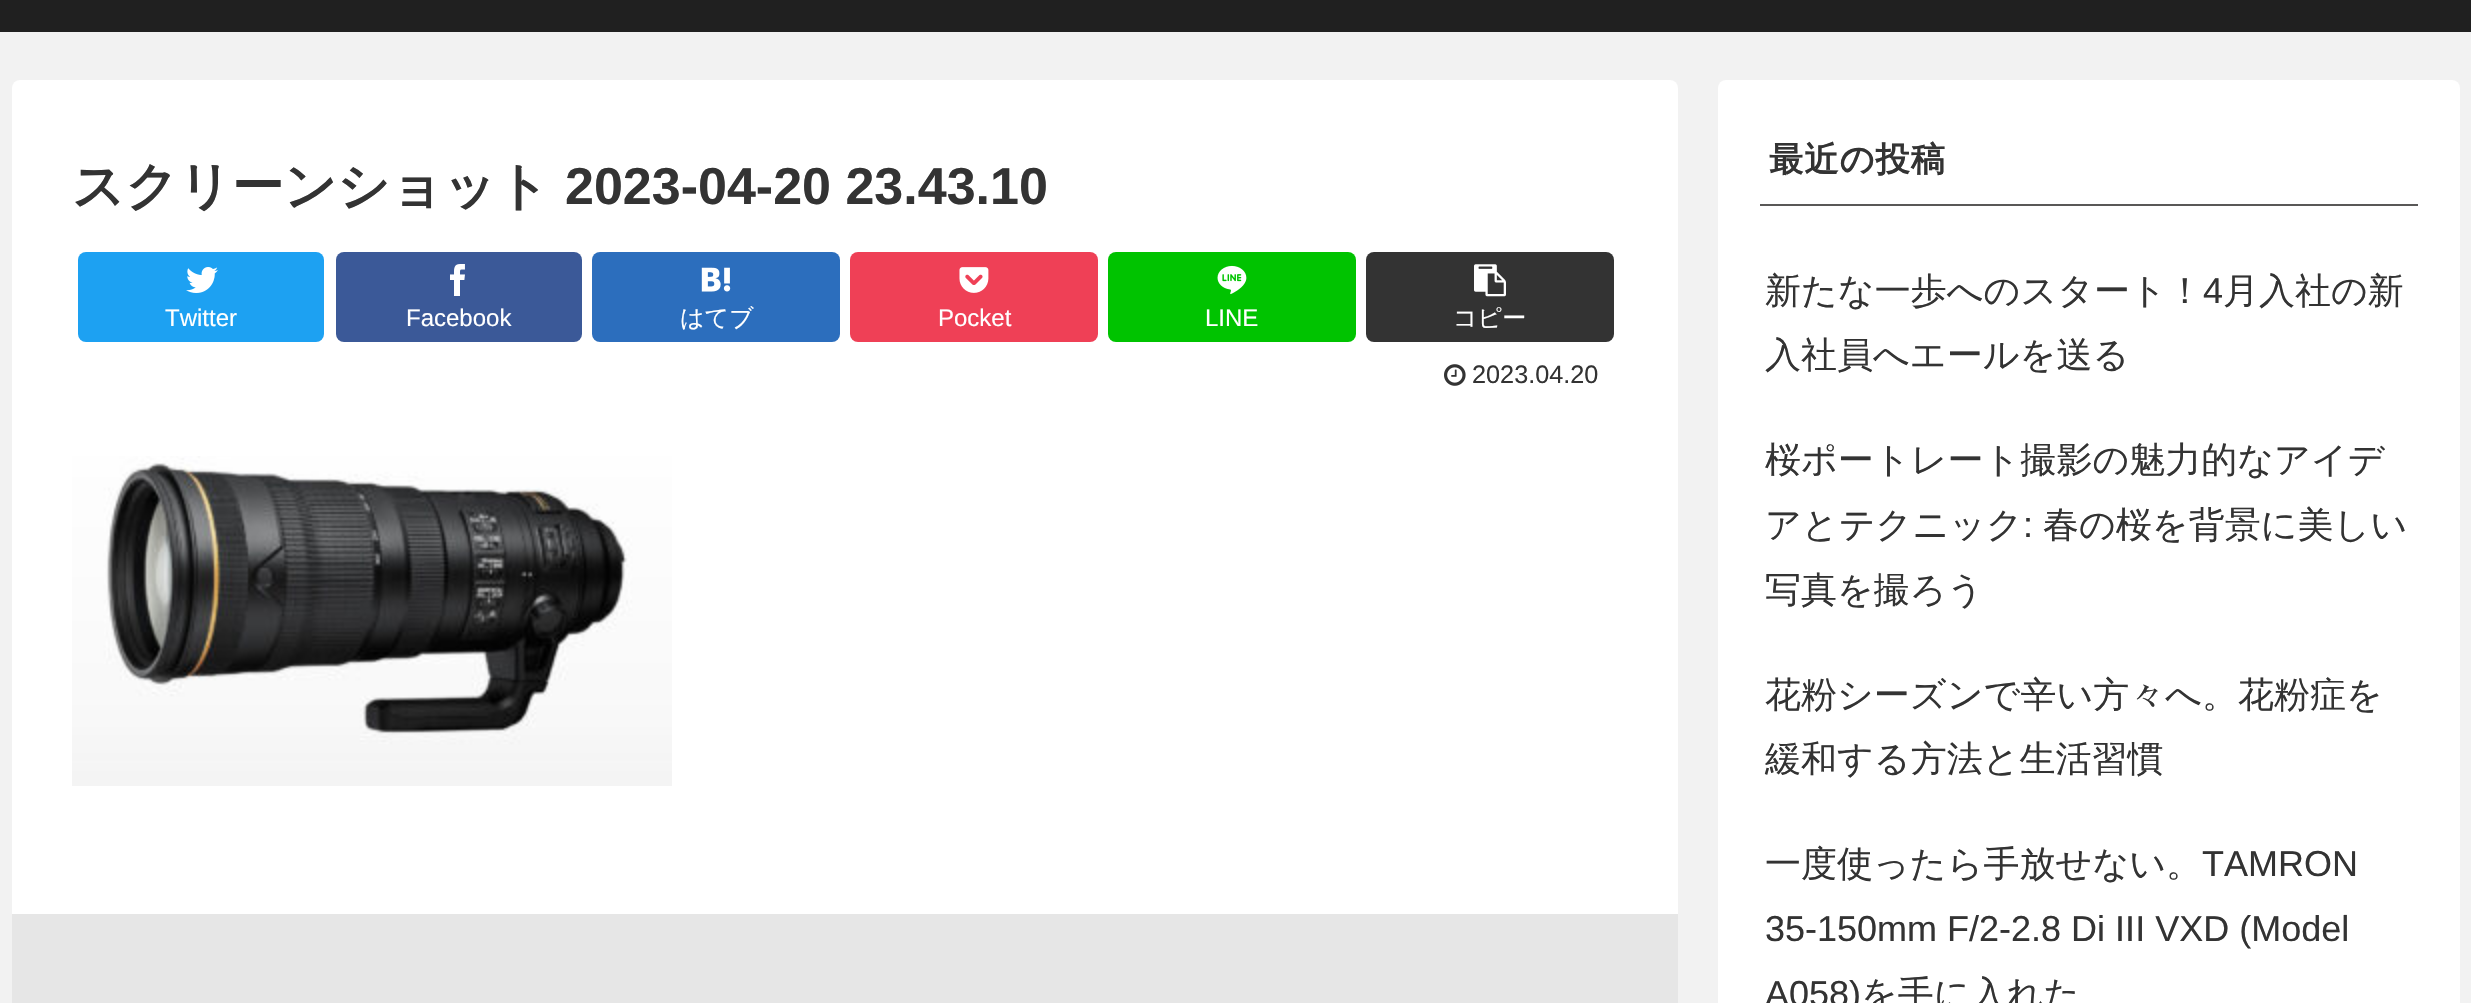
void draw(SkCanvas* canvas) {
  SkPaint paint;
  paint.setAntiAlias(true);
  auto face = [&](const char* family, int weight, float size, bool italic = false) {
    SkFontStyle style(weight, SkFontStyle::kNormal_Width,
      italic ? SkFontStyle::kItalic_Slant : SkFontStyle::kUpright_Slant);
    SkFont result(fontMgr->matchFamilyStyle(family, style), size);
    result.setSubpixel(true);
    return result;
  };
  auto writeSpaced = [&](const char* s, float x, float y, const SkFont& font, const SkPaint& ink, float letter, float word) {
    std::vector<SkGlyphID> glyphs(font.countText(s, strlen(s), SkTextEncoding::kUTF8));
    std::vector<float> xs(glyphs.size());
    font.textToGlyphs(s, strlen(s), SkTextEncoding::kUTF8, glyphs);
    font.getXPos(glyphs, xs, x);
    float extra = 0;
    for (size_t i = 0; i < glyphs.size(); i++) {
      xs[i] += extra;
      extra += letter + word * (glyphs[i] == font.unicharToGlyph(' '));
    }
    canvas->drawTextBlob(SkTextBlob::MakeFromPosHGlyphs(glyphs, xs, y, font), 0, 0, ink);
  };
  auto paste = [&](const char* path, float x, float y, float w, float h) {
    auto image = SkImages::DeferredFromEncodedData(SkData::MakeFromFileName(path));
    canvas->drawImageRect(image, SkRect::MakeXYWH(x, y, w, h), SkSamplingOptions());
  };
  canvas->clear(0xfff2f2f2);
  paint.setColor(0xff202020);
  canvas->drawRect(SkRect::MakeXYWH(0, 0, 2471, 32), paint);
  paint.setColor(0xffffffff);
  canvas->drawRoundRect(SkRect::MakeXYWH(12, 80, 1666, 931), 8, 8, paint);
  paint.setColor(0xff1da1f2);
  canvas->drawRoundRect(SkRect::MakeXYWH(78, 252, 246, 90), 8, 8, paint);
  paste("img/1.png", 186, 267, 32, 26);
  paint.setColor(0xff3b5998);
  canvas->drawRoundRect(SkRect::MakeXYWH(336, 252, 246, 90), 8, 8, paint);
  paste("img/2.png", 450, 264, 15, 32);
  paint.setColor(0xff2c6ebd);
  canvas->drawRoundRect(SkRect::MakeXYWH(592, 252, 248, 90), 8, 8, paint);
  paste("img/3.png", 701, 267, 30, 25);
  paint.setColor(0xffef4056);
  canvas->drawRoundRect(SkRect::MakeXYWH(850, 252, 248, 90), 8, 8, paint);
  paste("img/4.png", 959, 267, 30, 26);
  paint.setColor(0xff00c300);
  canvas->drawRoundRect(SkRect::MakeXYWH(1108, 252, 248, 90), 8, 8, paint);
  paste("img/5.png", 1217, 265, 30, 30);
  paint.setColor(0xff333333);
  canvas->drawRoundRect(SkRect::MakeXYWH(1366, 252, 248, 90), 8, 8, paint);
  paste("img/6.png", 1474, 264, 32, 33);
  paste("img/7.png", 1444, 364, 22, 22);
  paste("img/8.png", 72, 456, 600, 330);
  paint.setColor(0xffe6e6e6);
  canvas->drawRect(SkRect::MakeXYWH(12, 914, 1666, 89), paint);
  paint.setColor(0xffffffff);
  canvas->drawRoundRect(SkRect::MakeXYWH(1718, 80, 742, 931), 8, 8, paint);
  paint.setColor(0xff595857);
  canvas->drawRect(SkRect::MakeXYWH(1760, 204, 658, 2), paint);
  auto f0 = face("WenQuanYi Zen Hei", 700, 52);
  paint.setColor(0xff333333);
  canvas->drawString("スクリーンショット", 72, 204, f0, paint);
  auto f1 = face("Liberation Sans", 700, 52);
  canvas->drawString("2023-04-20 23.43.10", 565, 204, f1, paint);
  auto f2 = face("Liberation Sans", 400, 24);
  paint.setColor(0xffffffff);
  canvas->drawString("Twitter", 165, 326, f2, paint);
  canvas->drawString("Facebook", 406, 326, f2, paint);
  auto f3 = face("WenQuanYi Zen Hei", 500, 24);
  canvas->drawString("はてブ", 680, 326, f3, paint);
  canvas->drawString("Pocket", 938, 326, f2, paint);
  canvas->drawString("LINE", 1205, 326, f2, paint);
  canvas->drawString("コピー", 1453, 326, f3, paint);
  auto f4 = face("Liberation Sans", 400, 25.25f);
  paint.setColor(0xff333333);
  canvas->drawString("2023.04.20", 1472, 383, f4, paint);
  auto f5 = face("WenQuanYi Zen Hei", 700, 34.25f);
  writeSpaced("最近の投稿", 1769, 171, f5, paint, 1, 0);
  auto f6 = face("WenQuanYi Zen Hei", 500, 36);
  canvas->drawString("新たな一歩へのスタート！", 1765, 303, f6, paint);
  auto f7 = face("Liberation Sans", 400, 36);
  canvas->drawString("4", 2203, 303, f7, paint);
  {
    const struct { const char* s; float x, y; } items[] = {
      {"月入社の新", 2223, 303},
      {"入社員へエールを送る", 1765, 367},
      {"桜ポートレート撮影の魅力的なアイデ", 1765, 472},
      {"アとテクニック", 1765, 537},
    };
    for (auto [s, x, y] : items) {
      canvas->drawString(s, x, y, f6, paint);
    }
  }
  canvas->drawString(":", 2023, 537, f7, paint);
  {
    const struct { const char* s; float x, y; } items[] = {
      {"春の桜を背景に美しい", 2043, 537},
      {"写真を撮ろう", 1765, 602},
      {"花粉シーズンで辛い方々へ。花粉症を", 1765, 707},
      {"緩和する方法と生活習慣", 1765, 771},
      {"一度使ったら手放せない。", 1765, 876},
    };
    for (auto [s, x, y] : items) {
      canvas->drawString(s, x, y, f6, paint);
    }
  }
  {
    const struct { const char* s; float x, y; } items[] = {
      {"TAMRON", 2202, 876},
      {"35-150mm F/2-2.8 Di III VXD (Model", 1765, 941},
      {"A058)", 1765, 1006},
    };
    for (auto [s, x, y] : items) {
      canvas->drawString(s, x, y, f7, paint);
    }
  }
  canvas->drawString("を手に入れた", 1861, 1006, f6, paint);
}
